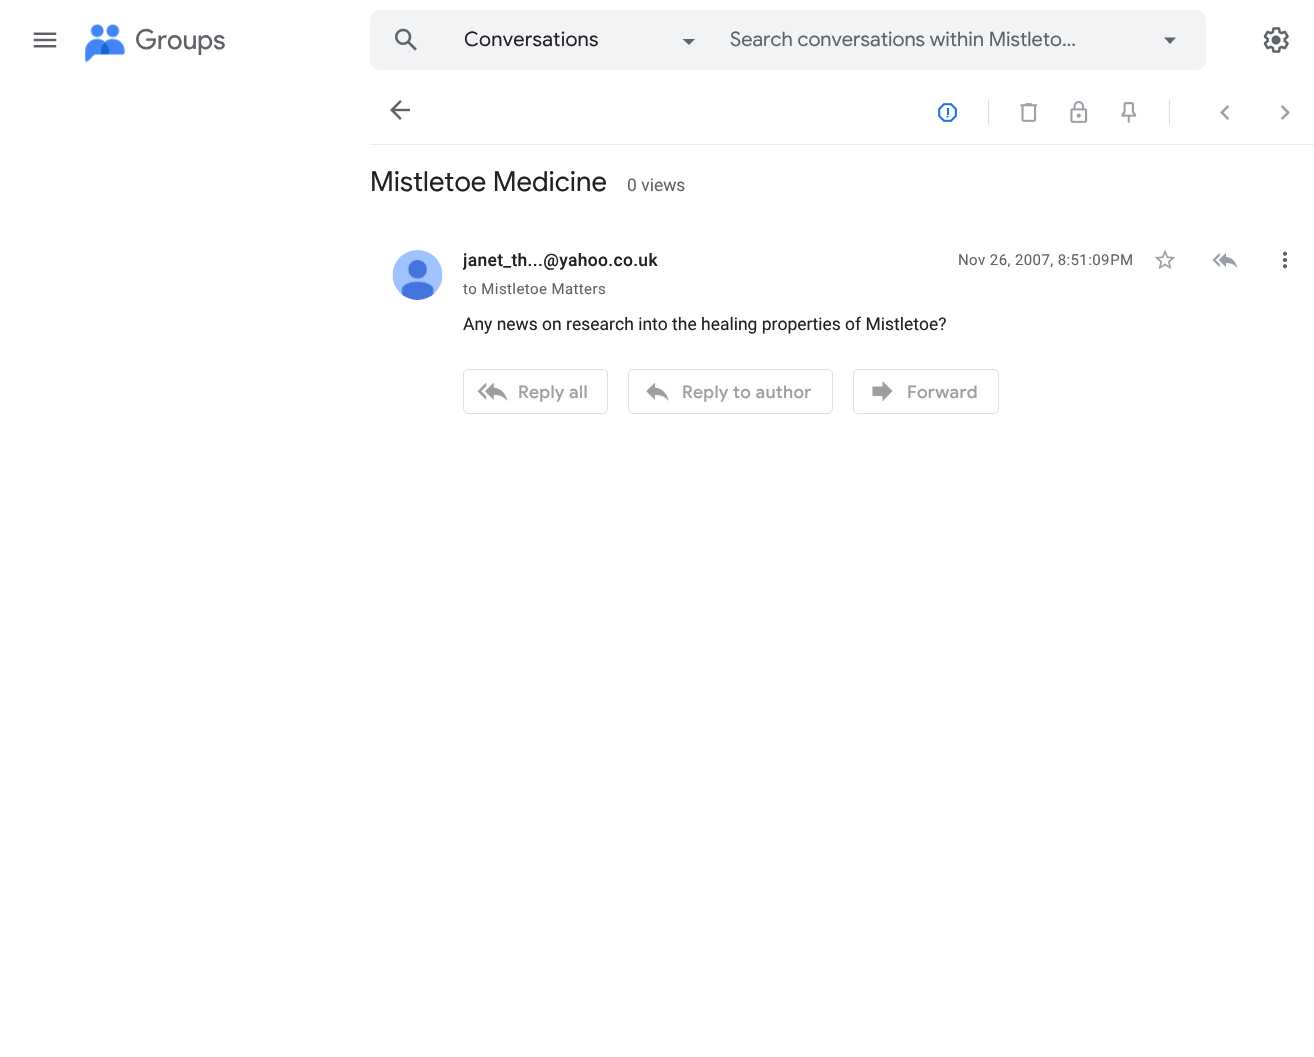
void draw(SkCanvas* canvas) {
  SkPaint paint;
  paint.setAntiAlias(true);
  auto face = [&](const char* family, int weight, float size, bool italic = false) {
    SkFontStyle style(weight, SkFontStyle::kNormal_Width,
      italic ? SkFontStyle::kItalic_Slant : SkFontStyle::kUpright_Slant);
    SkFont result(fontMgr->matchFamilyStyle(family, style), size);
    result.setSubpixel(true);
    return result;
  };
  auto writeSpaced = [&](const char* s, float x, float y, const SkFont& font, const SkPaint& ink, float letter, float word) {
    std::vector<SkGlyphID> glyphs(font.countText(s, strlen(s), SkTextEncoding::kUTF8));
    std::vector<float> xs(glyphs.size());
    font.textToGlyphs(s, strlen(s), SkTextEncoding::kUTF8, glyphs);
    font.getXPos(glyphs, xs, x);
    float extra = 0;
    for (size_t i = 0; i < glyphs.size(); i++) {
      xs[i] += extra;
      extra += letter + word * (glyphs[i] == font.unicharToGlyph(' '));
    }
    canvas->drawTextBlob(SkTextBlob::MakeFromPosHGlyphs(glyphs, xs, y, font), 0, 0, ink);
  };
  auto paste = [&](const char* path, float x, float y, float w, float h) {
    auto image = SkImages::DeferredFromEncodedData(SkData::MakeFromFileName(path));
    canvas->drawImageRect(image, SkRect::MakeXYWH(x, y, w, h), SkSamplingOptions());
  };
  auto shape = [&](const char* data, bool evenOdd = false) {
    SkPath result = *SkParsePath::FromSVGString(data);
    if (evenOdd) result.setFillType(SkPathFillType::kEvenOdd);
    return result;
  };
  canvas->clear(0xffffffff);
  paste("img/1.png", 33, 32, 24, 16);
  paste("img/2.png", 85, 23, 40, 40);
  paint.setColor(0xfff1f3f4);
  canvas->drawRoundRect(SkRect::MakeXYWH(370, 10, 836, 60), 10, 10, paint);
  paste("img/3.png", 395, 28, 22, 23);
  paint.setColor(0xff5f6368);
  canvas->drawPath(shape("M682.5 39H695L689 45Z"), paint);
  canvas->drawPath(shape("M1164 37.5L1170 44L1176 37.5Z"), paint);
  paste("img/4.png", 1263, 27, 26, 26);
  paint.setColor(0xffe8eaed);
  canvas->drawRect(SkRect::MakeXYWH(370, 144, 944, 1), paint);
  paste("img/5.png", 390, 100, 20, 20);
  paste("img/6.png", 938, 103, 19, 19);
  paint.setColor(0xffdddddd);
  canvas->drawRect(SkRect::MakeXYWH(988, 100, 1, 25), paint);
  paste("img/7.png", 1020, 103, 18, 19);
  paste("img/8.png", 1070, 101, 18, 22);
  paste("img/9.png", 1121, 102, 16, 21);
  canvas->drawRect(SkRect::MakeXYWH(1169, 100, 1, 25), paint);
  paste("img/10.png", 1220, 105, 10, 15);
  paste("img/11.png", 1280, 105, 10, 15);
  paste("img/12.png", 392, 250, 51, 50);
  paste("img/13.png", 1154, 250, 22, 20);
  paste("img/14.png", 1212, 253, 26, 15);
  paste("img/15.png", 1282, 251, 6, 18);
  paint.setStroke(true);
  paint.setStrokeWidth(1);
  paint.setColor(0xffe0e0e0);
  canvas->drawRoundRect(SkRect::MakeXYWH(463.5f, 369.5f, 144, 44), 4.5f, 4.5f, paint);
  paste("img/16.png", 477, 382, 31, 19);
  canvas->drawRoundRect(SkRect::MakeXYWH(628.5f, 369.5f, 204, 44), 4.5f, 4.5f, paint);
  paste("img/17.png", 646, 382, 23, 19);
  canvas->drawRoundRect(SkRect::MakeXYWH(853.5f, 369.5f, 145, 44), 4.5f, 4.5f, paint);
  paint.setStroke(false);
  paint.setColor(0xff9e9e9e);
  canvas->drawPath(shape("M882.5 386.5V381L892.5 391L882.5 401.5V396H872.5V386.5Z"), paint);
  auto f0 = face("Product Sans", 400, 27.5f);
  paint.setColor(0xff5f6368);
  canvas->drawString("Groups", 135, 49, f0, paint);
  auto f1 = face("Google Sans", 400, 20);
  paint.setColor(0xff202124);
  writeSpaced("Conversations", 464, 46, f1, paint, 0.25f, 0);
  paint.setColor(0xff5f6368);
  canvas->drawString("Search conversations within Mistleto…", 730, 46, f1, paint);
  auto f2 = face("Google Sans", 400, 27.5f);
  paint.setColor(0xff202124);
  canvas->drawString("Mistletoe Medicine", 370, 191, f2, paint);
  auto f3 = face("Roboto", 400, 17.5f);
  paint.setColor(0xff5f6368);
  canvas->drawString("0 views", 627, 191, f3, paint);
  canvas->save();
  canvas->clipRect(SkRect::MakeXYWH(463, 248, 215, 25));
  auto f4 = face("Roboto", 500, 17.5f);
  paint.setColor(0xff202124);
  writeSpaced("janet_th...@yahoo.co.uk", 463, 266, f4, paint, 0.3f, 0);
  canvas->restore();
  auto f5 = face("Roboto", 400, 15);
  paint.setColor(0xff5f6368);
  writeSpaced("Nov 26, 2007, 8:51:09 PM", 958, 265, f5, paint, 0.4f, 0);
  writeSpaced("to Mistletoe Matters", 463, 294, f5, paint, 0.4f, 0);
  paint.setColor(0xff202124);
  canvas->drawString("Any news on research into the healing properties of Mistletoe?", 463, 330, f3, paint);
  auto f6 = face("Google Sans", 500, 17.5f);
  paint.setColor(0xff9e9e9e);
  {
    const struct { const char* s; float x, y; } items[] = {
      {"Reply all", 518, 398},
      {"Reply to author", 682, 398},
      {"Forward", 907, 398},
    };
    for (auto [s, x, y] : items) {
      writeSpaced(s, x, y, f6, paint, 0.3f, 0);
    }
  }
}
